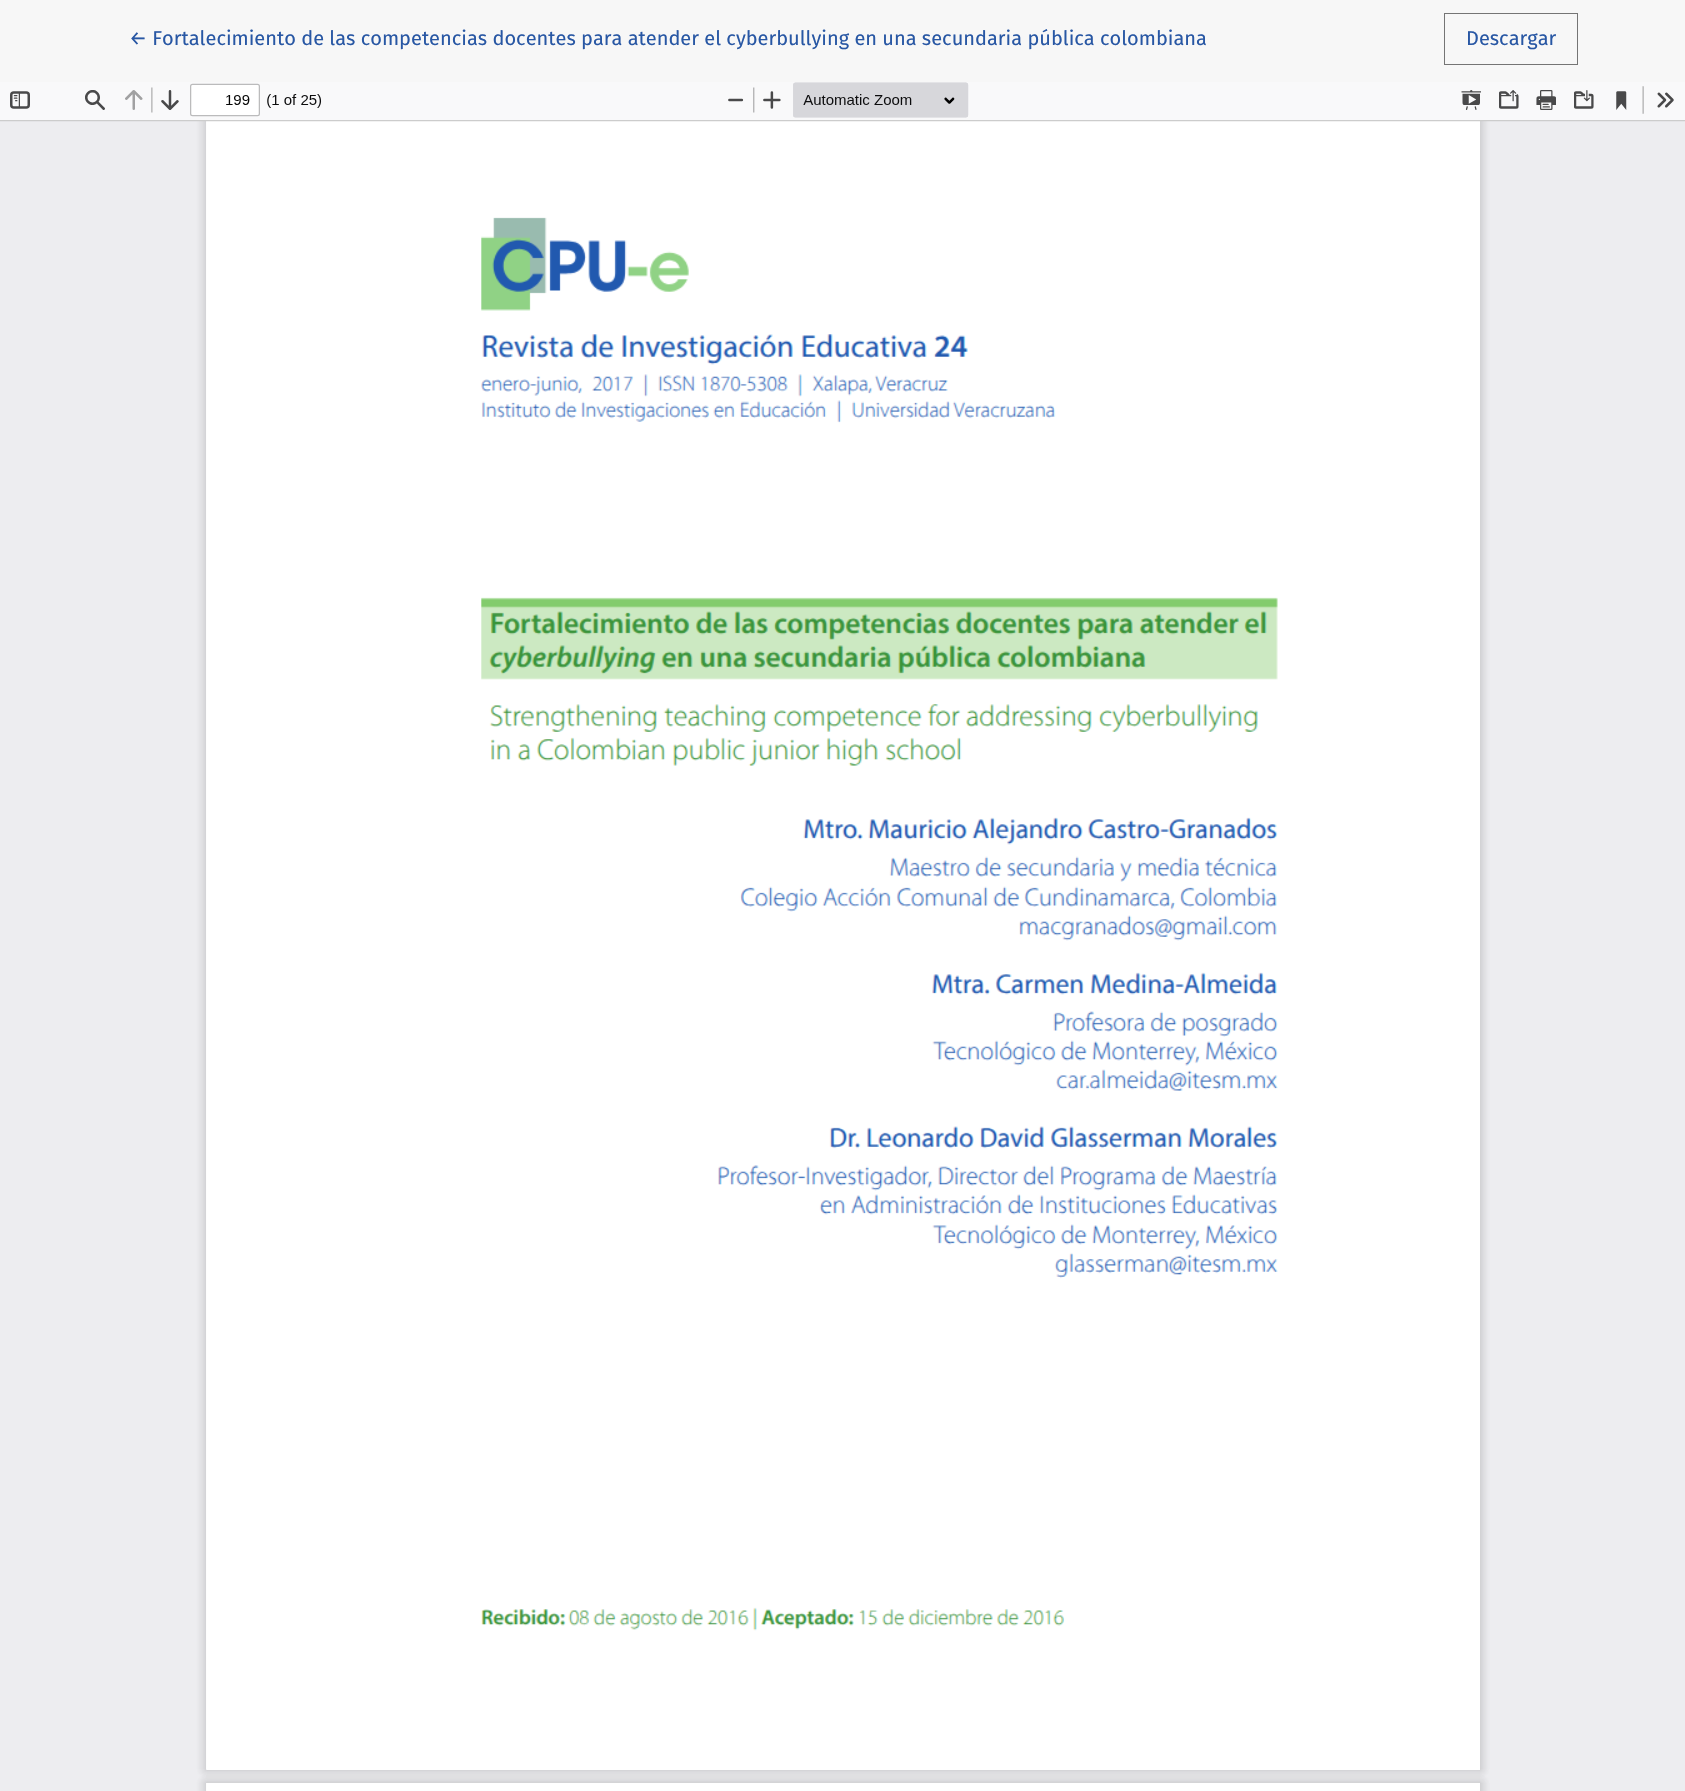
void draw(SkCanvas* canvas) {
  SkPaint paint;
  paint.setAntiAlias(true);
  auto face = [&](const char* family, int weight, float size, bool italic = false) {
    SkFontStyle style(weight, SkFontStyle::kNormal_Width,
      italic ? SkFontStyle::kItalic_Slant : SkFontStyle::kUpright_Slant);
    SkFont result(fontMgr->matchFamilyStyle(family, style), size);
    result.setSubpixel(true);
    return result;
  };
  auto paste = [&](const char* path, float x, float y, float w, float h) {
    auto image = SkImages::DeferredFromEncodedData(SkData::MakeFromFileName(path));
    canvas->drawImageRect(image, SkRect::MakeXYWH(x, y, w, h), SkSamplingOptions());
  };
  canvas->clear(0xfff7f7f7);
  paint.setStroke(true);
  paint.setStrokeWidth(1);
  paint.setColor(0xff757575);
  canvas->drawRect(SkRect::MakeXYWH(1444.5f, 13.5f, 133, 51), paint);
  paste("img/1.png", 0, 82, 1685, 1709);
  auto f0 = face("Fira Sans", 400, 20);
  paint.setStroke(false);
  paint.setColor(0xff2857a4);
  canvas->drawString("← Fortalecimiento de las competencias docentes para atender el cyberbullying en una secundaria pública colombiana", 129, 45, f0, paint);
  canvas->drawString("Descargar", 1466, 45, f0, paint);
}
